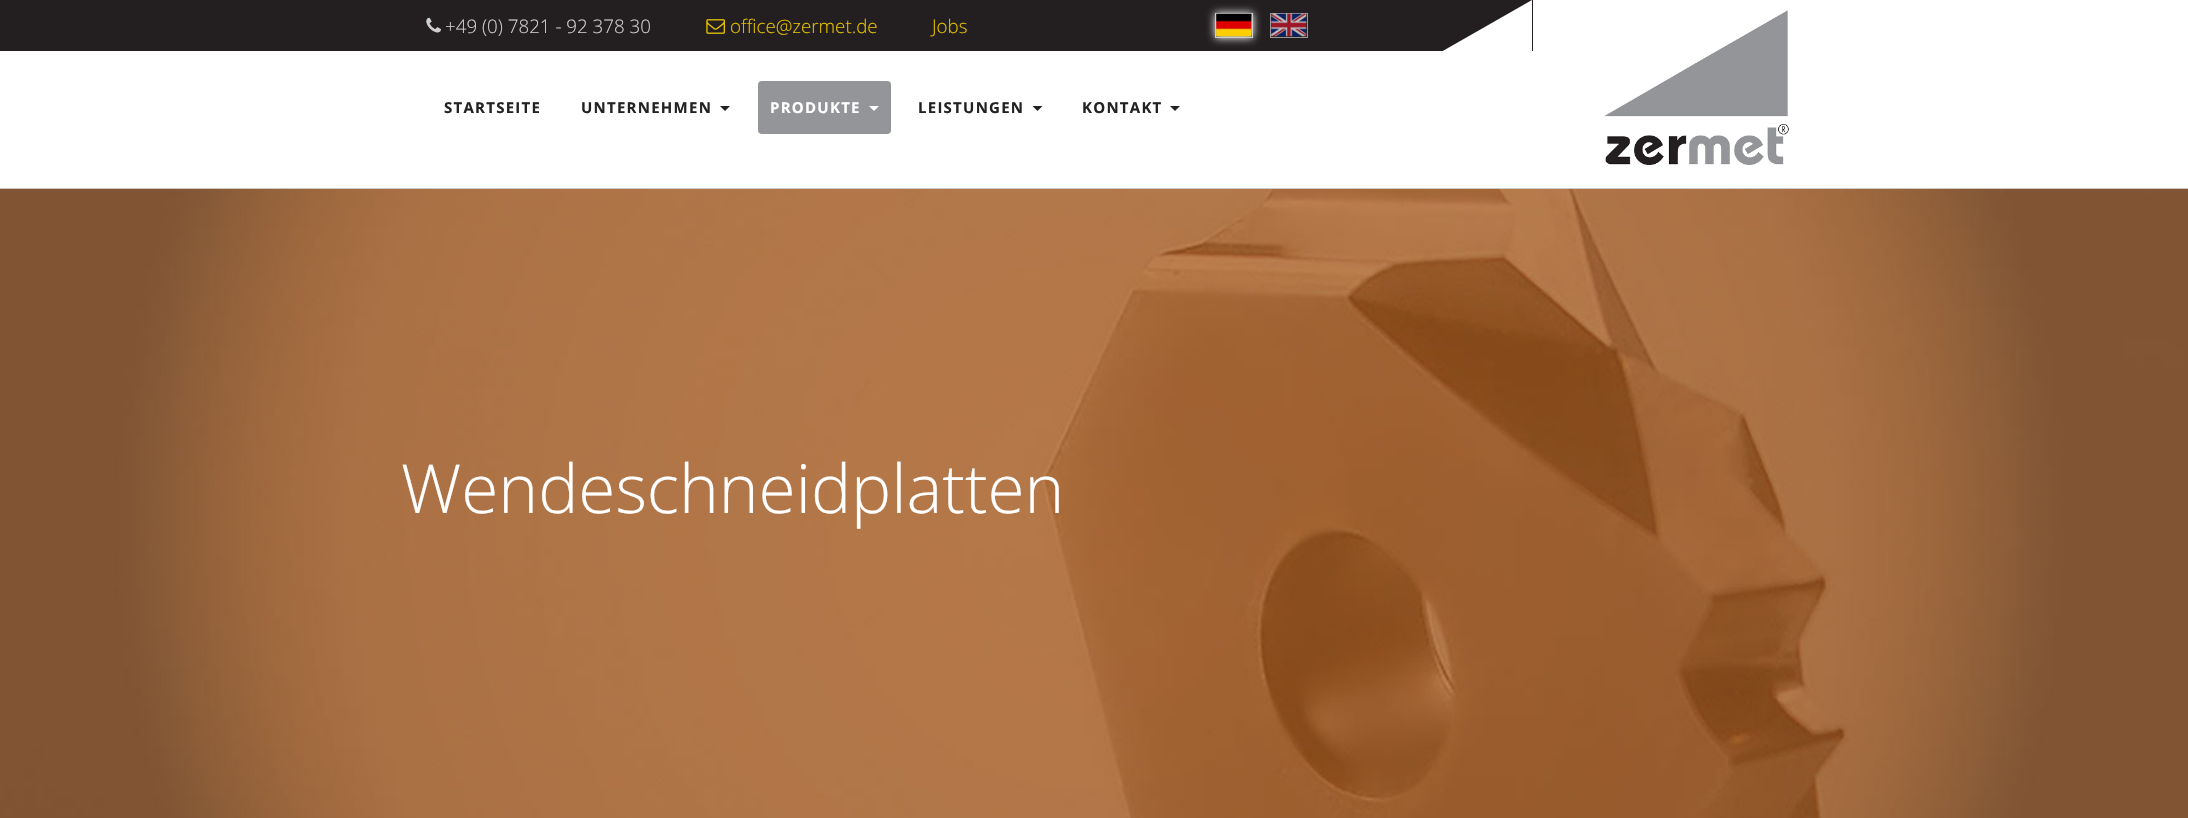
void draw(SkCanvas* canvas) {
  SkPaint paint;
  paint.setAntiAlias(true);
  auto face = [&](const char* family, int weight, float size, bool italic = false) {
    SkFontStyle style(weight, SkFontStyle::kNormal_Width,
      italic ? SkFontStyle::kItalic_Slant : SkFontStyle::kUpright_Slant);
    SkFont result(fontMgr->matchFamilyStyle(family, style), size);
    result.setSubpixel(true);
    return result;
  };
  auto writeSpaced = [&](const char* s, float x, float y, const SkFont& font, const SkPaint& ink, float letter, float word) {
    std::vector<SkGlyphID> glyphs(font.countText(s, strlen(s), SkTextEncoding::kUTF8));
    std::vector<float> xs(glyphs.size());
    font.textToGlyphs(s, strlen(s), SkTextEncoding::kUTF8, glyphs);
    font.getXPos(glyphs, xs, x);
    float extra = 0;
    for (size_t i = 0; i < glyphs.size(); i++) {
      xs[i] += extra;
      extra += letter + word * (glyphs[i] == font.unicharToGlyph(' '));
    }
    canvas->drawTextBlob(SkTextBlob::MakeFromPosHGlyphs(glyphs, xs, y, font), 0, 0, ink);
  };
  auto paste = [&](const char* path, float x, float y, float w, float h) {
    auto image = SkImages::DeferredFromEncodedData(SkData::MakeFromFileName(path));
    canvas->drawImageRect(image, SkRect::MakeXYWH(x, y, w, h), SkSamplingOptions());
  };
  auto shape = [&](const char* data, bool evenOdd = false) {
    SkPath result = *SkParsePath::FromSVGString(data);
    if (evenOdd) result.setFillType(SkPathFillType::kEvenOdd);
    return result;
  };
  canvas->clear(0xffffffff);
  paint.setColor(0xffcacaca);
  canvas->drawRect(SkRect::MakeXYWH(0, 188, 2188, 1), paint);
  paint.setColor(0xff231f20);
  canvas->drawRect(SkRect::MakeXYWH(0, 0, 1533, 51), paint);
  paste("img/1.png", 426, 17, 15, 16);
  paste("img/2.png", 706, 19, 19, 15);
  paint.setColor(0xffffffff);
  paint.setMaskFilter(SkMaskFilter::MakeBlur(kNormal_SkBlurStyle, 4.5f));
  canvas->drawRect(SkRect::MakeXYWH(1215, 13, 38, 25), paint);
  paint.setMaskFilter(nullptr);
  paint.setStroke(true);
  paint.setStrokeWidth(1);
  paint.setColor(0xffcecece);
  canvas->drawRect(SkRect::MakeXYWH(1215.5f, 13.5f, 37, 24), paint);
  paste("img/3.png", 1216, 13, 36, 24);
  paint.setColor(0xff9b9a9a);
  canvas->drawRect(SkRect::MakeXYWH(1270.5f, 13.5f, 37, 24), paint);
  paste("img/4.png", 1271, 13, 36, 24);
  paint.setStroke(false);
  paint.setColor(0xffffffff);
  canvas->drawPath(shape("M1532 52H1441L1532 0Z"), paint);
  paint.setColor(0xff222222);
  canvas->drawPath(shape("M720 106H730L725 111Z"), paint);
  paint.setColor(0xff949599);
  canvas->drawRoundRect(SkRect::MakeXYWH(758, 81, 133, 53), 4, 4, paint);
  paint.setColor(0xffffffff);
  canvas->drawPath(shape("M869 106H879L874 111Z"), paint);
  paint.setColor(0xff222222);
  canvas->drawPath(shape("M1032.5 106H1042.5L1037.5 111Z"), paint);
  canvas->drawPath(shape("M1170 106H1180L1175 111Z"), paint);
  paste("img/5.png", 1604, 10, 185, 155);
  paste("img/6.png", 0, 189, 2188, 629);
  auto f0 = face("Open Sans", 300, 18.75f);
  paint.setColor(0xffcecece);
  canvas->drawString("+49 (0) 7821 - 92 378 30", 445, 33, f0, paint);
  paint.setColor(0xffe3c000);
  canvas->drawString("office@zermet.de", 730, 33, f0, paint);
  canvas->drawString("Jobs", 932, 33, f0, paint);
  auto f1 = face("Open Sans", 700, 15);
  paint.setColor(0xff222222);
  writeSpaced("STARTSEITE", 444, 113, f1, paint, 1.25f, 0);
  writeSpaced("UNTERNEHMEN", 581, 113, f1, paint, 1.25f, 0);
  paint.setColor(0xffffffff);
  writeSpaced("PRODUKTE", 770, 113, f1, paint, 1.25f, 0);
  paint.setColor(0xff222222);
  writeSpaced("LEISTUNGEN", 918, 113, f1, paint, 1.25f, 0);
  writeSpaced("KONTAKT", 1082, 113, f1, paint, 1.25f, 0);
  auto f2 = face("Open Sans", 300, 67.5f);
  paint.setColor(0xffffffff);
  canvas->drawString("Wendeschneidplatten", 401, 513, f2, paint);
}
